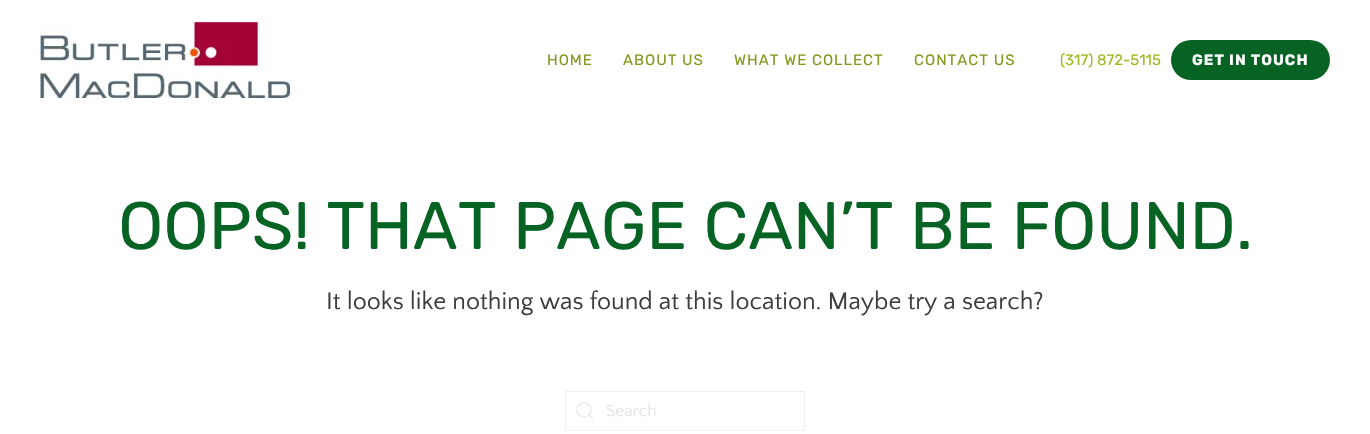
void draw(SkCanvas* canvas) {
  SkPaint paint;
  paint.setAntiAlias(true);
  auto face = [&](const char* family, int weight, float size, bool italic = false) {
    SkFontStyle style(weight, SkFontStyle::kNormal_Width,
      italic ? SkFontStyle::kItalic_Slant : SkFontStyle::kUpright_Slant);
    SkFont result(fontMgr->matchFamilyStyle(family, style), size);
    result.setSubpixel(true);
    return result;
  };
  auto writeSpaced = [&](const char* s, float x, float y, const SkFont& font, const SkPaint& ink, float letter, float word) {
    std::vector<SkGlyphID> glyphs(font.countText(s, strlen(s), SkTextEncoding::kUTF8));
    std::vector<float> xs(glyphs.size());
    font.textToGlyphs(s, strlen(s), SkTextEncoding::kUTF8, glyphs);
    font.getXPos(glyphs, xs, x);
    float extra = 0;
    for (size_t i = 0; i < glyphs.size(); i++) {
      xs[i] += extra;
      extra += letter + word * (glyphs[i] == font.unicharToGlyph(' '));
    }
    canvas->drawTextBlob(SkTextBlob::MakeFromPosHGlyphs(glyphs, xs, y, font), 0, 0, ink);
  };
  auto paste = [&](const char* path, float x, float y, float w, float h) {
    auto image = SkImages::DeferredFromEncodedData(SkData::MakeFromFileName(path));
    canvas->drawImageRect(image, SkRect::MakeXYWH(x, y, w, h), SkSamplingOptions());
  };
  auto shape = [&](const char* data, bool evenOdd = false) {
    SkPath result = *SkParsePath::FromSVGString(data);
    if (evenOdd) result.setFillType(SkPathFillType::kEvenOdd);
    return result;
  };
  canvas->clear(0xffffffff);
  paste("img/1.png", 40, 22, 250, 76);
  paint.setColor(0xff076324);
  canvas->drawRoundRect(SkRect::MakeXYWH(1171, 40, 159, 40), 20, 20, paint);
  paint.setStroke(true);
  paint.setStrokeWidth(1);
  paint.setColor(0xffeeeeee);
  canvas->drawRect(SkRect::MakeXYWH(565.5f, 391.5f, 239, 39), paint);
  paint.setStrokeWidth(1.1f);
  paint.setColor(0xffe6e6e6);
  canvas->drawCircle(584, 410, 7, paint);
  canvas->drawPath(shape("M589 415L593 419Z"), paint);
  auto f0 = face("Rubik", 300, 15);
  paint.setStroke(false);
  paint.setColor(0xff819a1e);
  {
    const struct { const char* s; float x, y; } items[] = {
      {"HOME", 547, 65},
      {"ABOUT US", 623, 65},
      {"WHAT WE COLLECT", 734, 65},
      {"CONTACT US", 914, 65},
    };
    for (auto [s, x, y] : items) {
      writeSpaced(s, x, y, f0, paint, 1, 0);
    }
  }
  paint.setColor(0xff9dbb24);
  canvas->drawString("(317) 872-5115", 1060, 65, f0, paint);
  auto f1 = face("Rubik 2", 300, 15);
  paint.setColor(0xffffffff);
  writeSpaced("GET IN TOUCH", 1192, 65, f1, paint, 1, 0);
  auto f2 = face("Rubik", 300, 67);
  paint.setColor(0xff076324);
  canvas->drawString("OOPS! THAT PAGE CAN’T BE FOUND.", 118, 249, f2, paint);
  auto f3 = face("Quattrocento Sans", 400, 25);
  paint.setColor(0xff3d3d3d);
  canvas->drawString("It looks like nothing was found at this location. Maybe try a search?", 326, 309, f3, paint);
  auto f4 = face("Quattrocento Sans", 400, 17);
  paint.setColor(0xffe6e6e6);
  canvas->drawString("Search", 606, 416, f4, paint);
}
